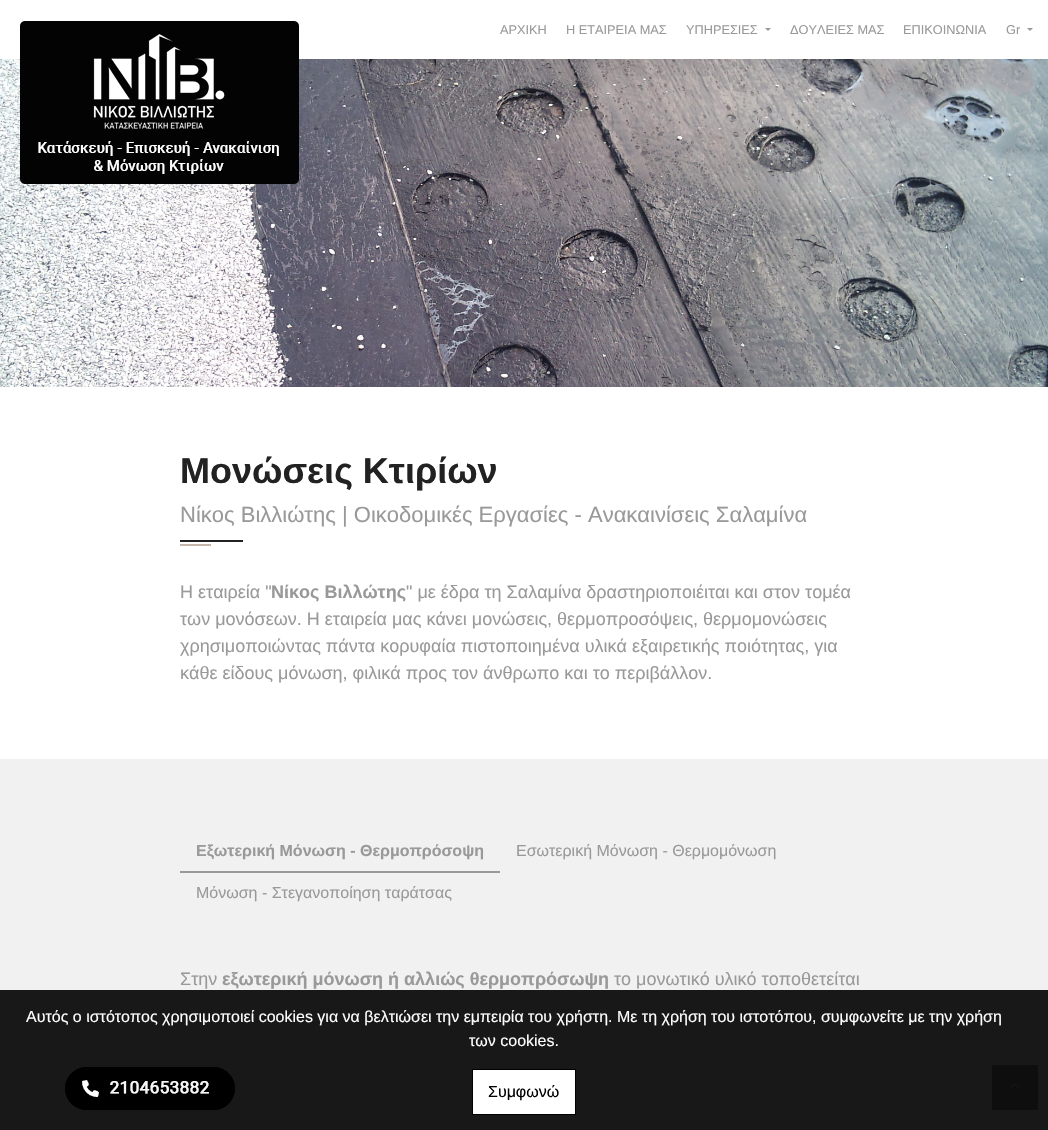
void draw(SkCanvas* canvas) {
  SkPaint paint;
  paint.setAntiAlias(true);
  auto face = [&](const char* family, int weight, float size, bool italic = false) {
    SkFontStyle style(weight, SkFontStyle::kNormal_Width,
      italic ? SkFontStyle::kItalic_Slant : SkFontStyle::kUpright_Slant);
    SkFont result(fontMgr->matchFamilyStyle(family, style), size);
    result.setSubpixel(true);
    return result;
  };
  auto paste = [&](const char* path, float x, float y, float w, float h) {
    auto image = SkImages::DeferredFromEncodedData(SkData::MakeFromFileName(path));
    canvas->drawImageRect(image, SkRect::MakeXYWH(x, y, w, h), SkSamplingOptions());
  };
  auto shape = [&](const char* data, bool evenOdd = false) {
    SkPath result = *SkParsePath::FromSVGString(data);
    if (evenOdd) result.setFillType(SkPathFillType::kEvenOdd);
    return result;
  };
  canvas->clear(0xffffffff);
  paste("img/2.png", 0, 59, 1048, 328);
  paste("img/1.png", 20, 21, 279, 163);
  paint.setColor(0xff999999);
  canvas->drawPath(shape("M765 28H771L768 31Z"), paint);
  canvas->drawPath(shape("M1027 28H1033L1030 31Z"), paint);
  paint.setColor(0xff181818);
  canvas->drawRect(SkRect::MakeXYWH(0, 990, 1048, 140), paint);
  paste("img/3.png", 65, 1067, 170, 43);
  paste("img/4.png", 180, 540, 63, 6);
  paint.setColor(0xfff1f1f1);
  canvas->drawRect(SkRect::MakeXYWH(0, 759, 1048, 231), paint);
  paint.setColor(0xff999999);
  canvas->drawRect(SkRect::MakeXYWH(180, 871, 320, 2), paint);
  paint.setColor(0xffffffff);
  canvas->drawRect(SkRect::MakeXYWH(472.5f, 1069.5f, 103, 45), paint);
  paint.setStroke(true);
  paint.setStrokeWidth(1);
  paint.setColor(0xff000000);
  canvas->drawRect(SkRect::MakeXYWH(472.5f, 1069.5f, 103, 45), paint);
  paint.setStroke(false);
  paint.setColor(0xff0e0e0e);
  canvas->drawRect(SkRect::MakeXYWH(992, 1065, 46, 45), paint);
  paste("img/5.png", 1010, 1083, 10, 6);
  auto f0 = face("Arimo", 400, 12.75f);
  paint.setColor(0xff999999);
  {
    const struct { const char* s; float x, y; } items[] = {
      {"ΑΡΧΙΚΗ", 500, 34},
      {"Η ΕΤΑΙΡΕΙΑ ΜΑΣ", 566, 34},
      {"ΥΠΗΡΕΣΙΕΣ", 686, 34},
      {"ΔΟΥΛΕΙΕΣ ΜΑΣ", 790, 34},
      {"ΕΠΙΚΟΙΝΩΝΙΑ", 903, 34},
      {"Gr", 1006, 34},
    };
    for (auto [s, x, y] : items) {
      canvas->drawString(s, x, y, f0, paint);
    }
  }
  auto f1 = face("Arimo", 700, 36);
  paint.setColor(0xff222222);
  canvas->drawString("Μονώσεις Κτιρίων", 180, 483, f1, paint);
  auto f2 = face("Arimo", 400, 22);
  paint.setColor(0xff999999);
  canvas->drawString("Νίκος Βιλλιώτης | Οικοδομικές Εργασίες - Ανακαινίσεις Σαλαμίνα", 180, 522, f2, paint);
  auto f3 = face("Arimo", 400, 18);
  canvas->drawString("Η εταιρεία \"", 180, 598, f3, paint);
  auto f4 = face("Arimo", 700, 18);
  canvas->drawString("Νίκος Βιλλώτης", 271, 598, f4, paint);
  {
    const struct { const char* s; float x, y; } items[] = {
      {"\" με έδρα τη Σαλαμίνα δραστηριοποιέιται και στον τομέα", 406, 598},
      {"των μονόσεων. Η εταιρεία μας κάνει μονώσεις, θερμοπροσόψεις, θερμομονώσεις", 180, 625},
      {"χρησιμοποιώντας πάντα κορυφαία πιστοποιημένα υλικά εξαιρετικής ποιότητας, για", 180, 652},
      {"κάθε είδους μόνωση, φιλικά προς τον άνθρωπο και το περιβάλλον.", 180, 679},
    };
    for (auto [s, x, y] : items) {
      canvas->drawString(s, x, y, f3, paint);
    }
  }
  auto f5 = face("Arimo", 700, 16);
  canvas->drawString("Εξωτερική Μόνωση - Θερμοπρόσοψη", 196, 856, f5, paint);
  auto f6 = face("Arimo", 400, 16);
  canvas->drawString("Εσωτερική Μόνωση - Θερμομόνωση", 516, 856, f6, paint);
  canvas->drawString("Μόνωση - Στεγανοποίηση ταράτσας", 196, 898, f6, paint);
  canvas->drawString("Στην", 180, 985, f3, paint);
  canvas->drawString("εξωτερική μόνωση ή αλλιώς θερμοπρόσωψη", 222, 985, f4, paint);
  canvas->drawString("το μονωτικό υλικό τοποθετείται", 614, 985, f3, paint);
  paint.setColor(0xffffffff);
  canvas->drawString("Αυτός ο ιστότοπος χρησιμοποιεί cookies για να βελτιώσει την εμπειρία του χρήστη. Με τη χρήση του ιστοτόπου, συμφωνείτε με την χρήση", 26, 1022, f6, paint);
  canvas->drawString("των cookies.", 469, 1046, f6, paint);
  paint.setColor(0xff000000);
  canvas->drawString("Συμφωνώ", 488, 1097, f6, paint);
}
